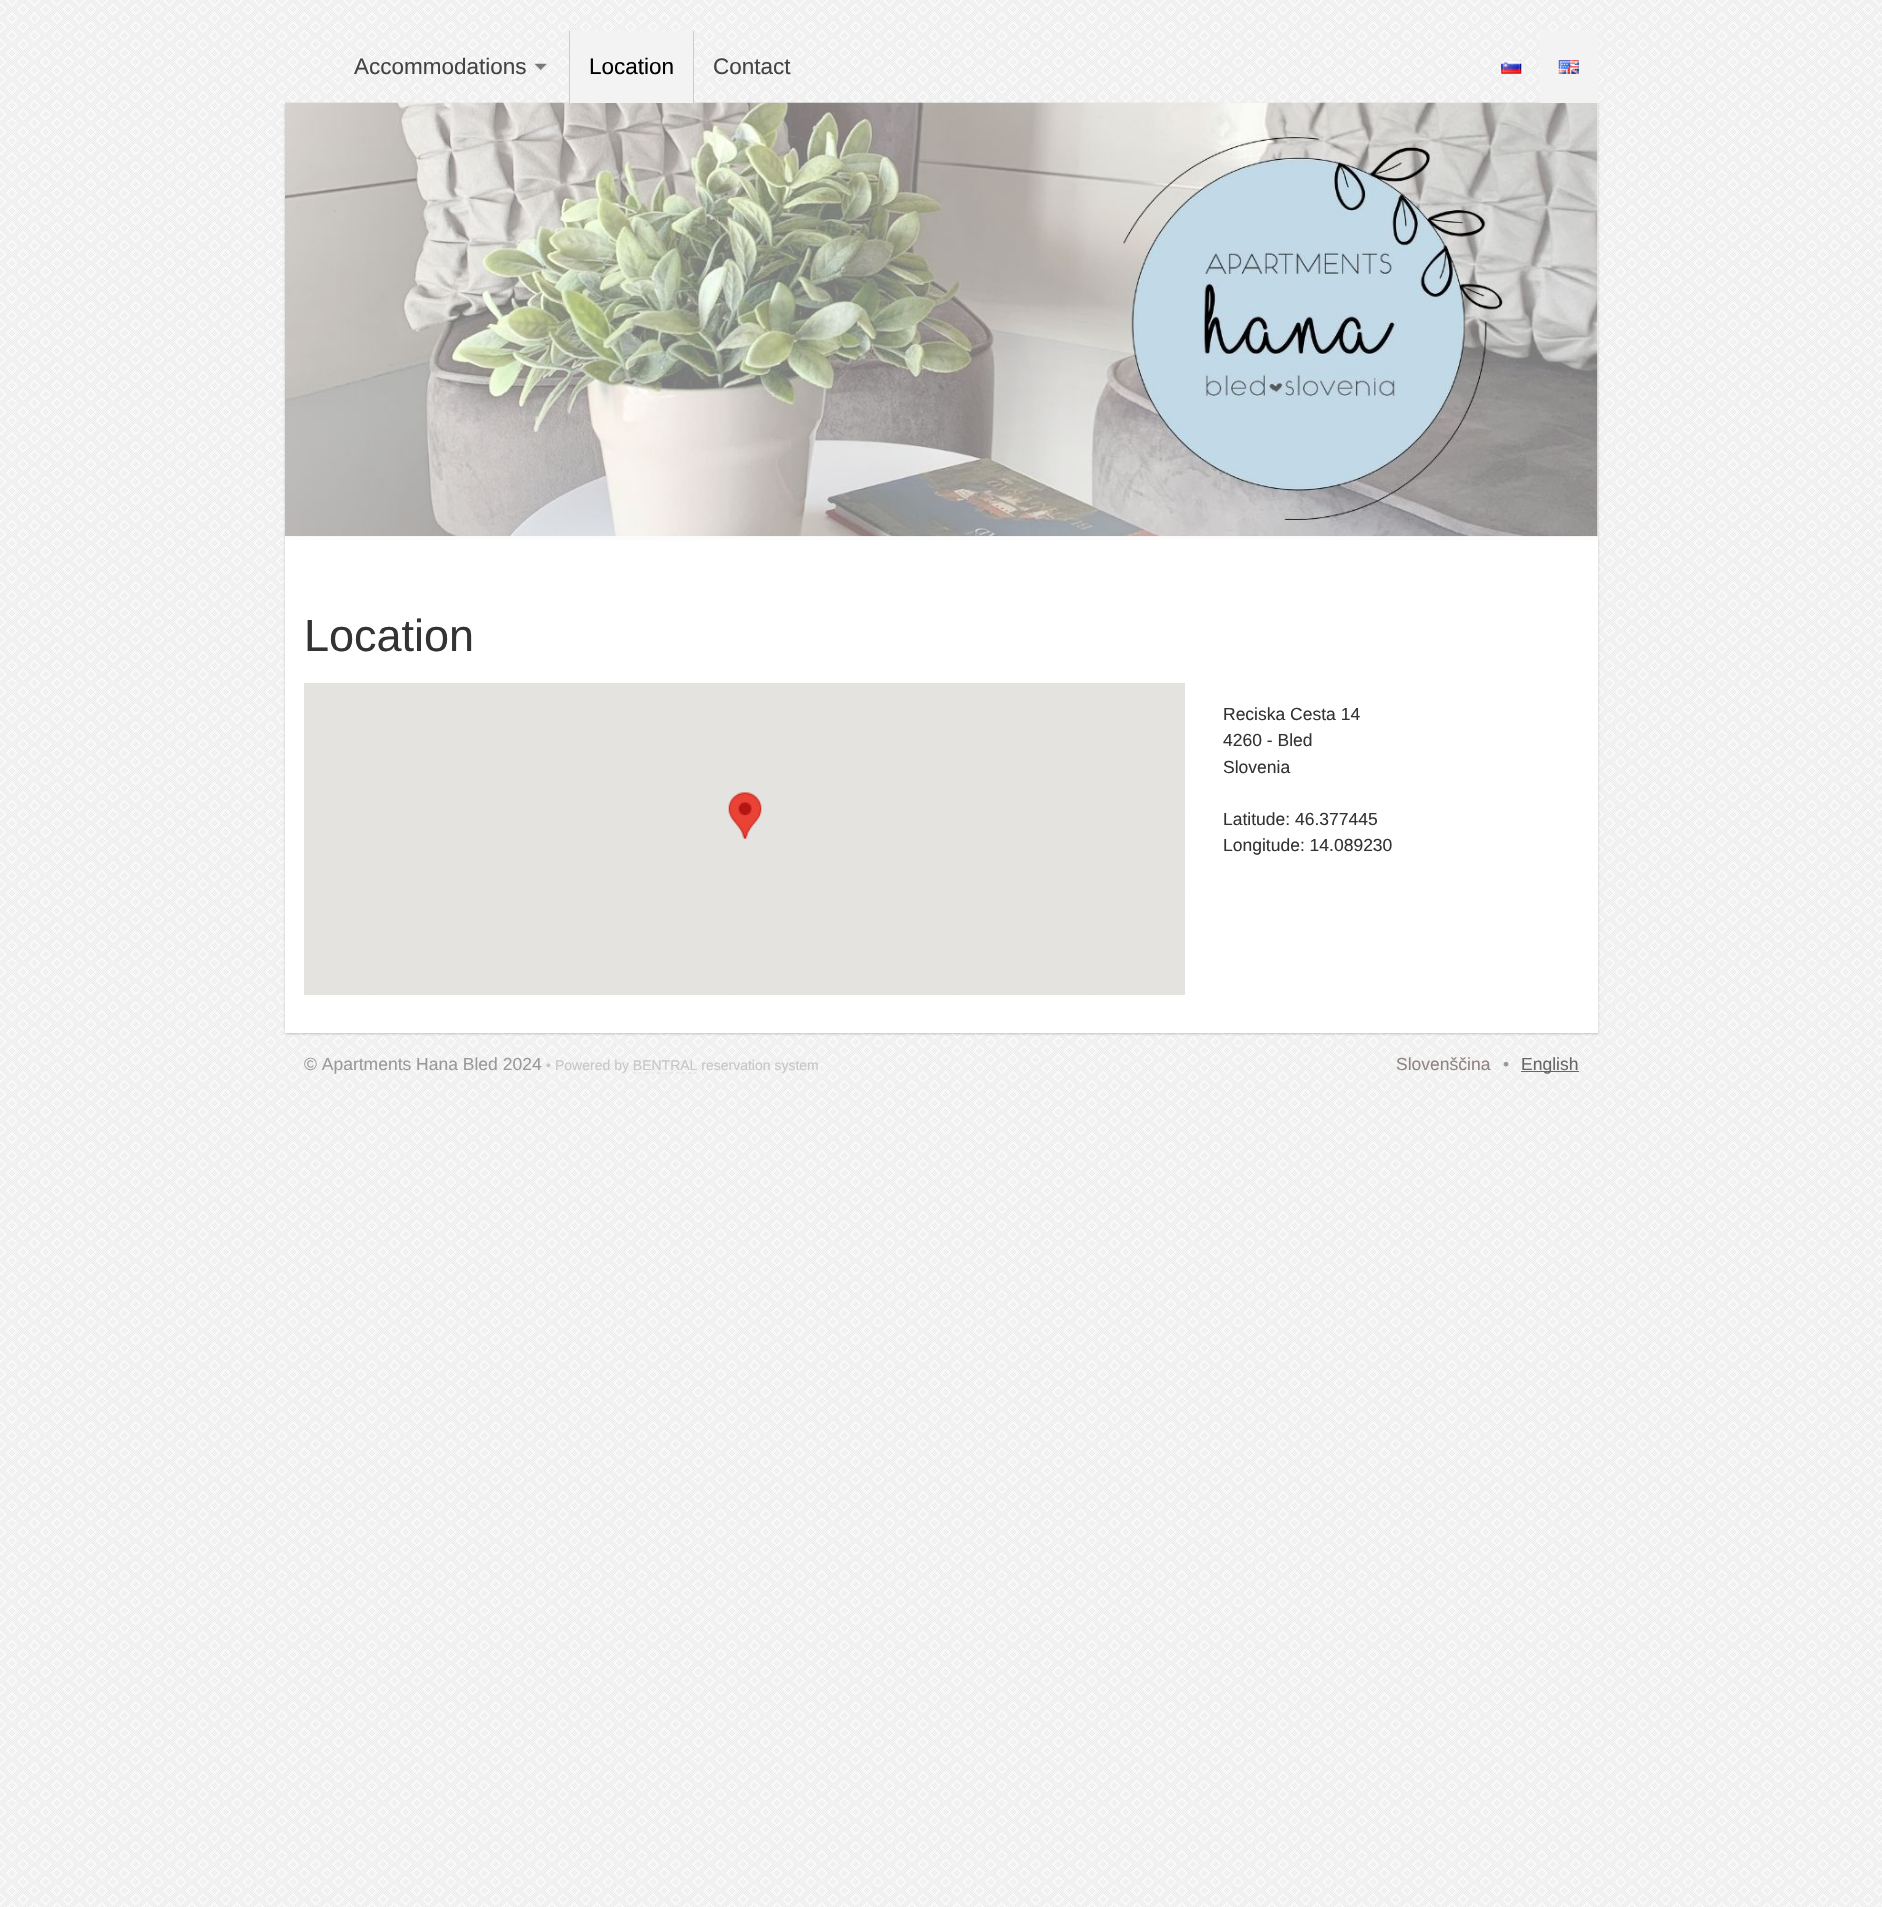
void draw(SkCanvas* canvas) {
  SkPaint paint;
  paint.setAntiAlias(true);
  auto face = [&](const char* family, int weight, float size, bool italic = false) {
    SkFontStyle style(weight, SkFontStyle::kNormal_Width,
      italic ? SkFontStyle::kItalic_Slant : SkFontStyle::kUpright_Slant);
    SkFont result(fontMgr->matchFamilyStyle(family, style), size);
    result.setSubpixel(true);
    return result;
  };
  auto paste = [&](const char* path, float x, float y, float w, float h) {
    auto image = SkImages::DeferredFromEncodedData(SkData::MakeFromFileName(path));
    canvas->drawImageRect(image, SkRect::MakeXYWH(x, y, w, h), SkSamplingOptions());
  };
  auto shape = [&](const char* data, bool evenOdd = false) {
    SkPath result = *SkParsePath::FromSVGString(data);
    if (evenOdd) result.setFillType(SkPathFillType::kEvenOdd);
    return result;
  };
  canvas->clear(0xffffffff);
  paste("img/1.png", 0, 0, 1882, 1907);
  canvas->save();
  canvas->clipPath(shape("M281 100H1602V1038H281ZM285 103H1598V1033H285Z", true), true);
  paint.setColor(0x33000000);
  paint.setMaskFilter(SkMaskFilter::MakeBlur(kNormal_SkBlurStyle, 1));
  canvas->drawRect(SkRect::MakeXYWH(285, 104, 1313, 930), paint);
  paint.setMaskFilter(nullptr);
  canvas->restore();
  paint.setColor(0xffeeeeee);
  canvas->drawRect(SkRect::MakeXYWH(1597, 103, 1, 433), paint);
  paint.setColor(0xfffcfcfc);
  canvas->drawRect(SkRect::MakeXYWH(285, 536, 1313, 4), paint);
  paste("img/5.png", 285, 102, 1313, 435);
  paint.setColor(0xffcccccc);
  canvas->drawRect(SkRect::MakeXYWH(569, 31, 1, 72), paint);
  paste("img/2.png", 534, 63, 13, 8);
  canvas->drawRect(SkRect::MakeXYWH(693, 31, 1, 72), paint);
  paint.setColor(0xfff3f3f3);
  canvas->drawRect(SkRect::MakeXYWH(570, 31, 123, 72), paint);
  paste("img/3.png", 1501, 60, 21, 14);
  canvas->drawRect(SkRect::MakeXYWH(1540, 31, 58, 72), paint);
  paste("img/4.png", 1558, 60, 21, 14);
  paint.setColor(0xf2ffffff);
  canvas->drawRect(SkRect::MakeXYWH(285, 540, 1313, 493), paint);
  paint.setColor(0xffe5e3df);
  canvas->drawRect(SkRect::MakeXYWH(304, 683, 881, 312), paint);
  paste("img/6.png", 728, 792, 34, 47);
  paint.setColor(0xff666666);
  canvas->drawRect(SkRect::MakeXYWH(1521, 1071, 58, 1), paint);
  auto f0 = face("Liberation Sans", 400, 22.5f);
  paint.setColor(0xff444444);
  canvas->drawString("Accommodations", 354, 74, f0, paint);
  paint.setColor(0xff000000);
  canvas->drawString("Location", 589, 74, f0, paint);
  paint.setColor(0xff444444);
  canvas->drawString("Contact", 713, 74, f0, paint);
  auto f1 = face("Liberation Sans", 400, 45);
  paint.setColor(0xff333333);
  canvas->drawString("Location", 304, 651, f1, paint);
  auto f2 = face("Liberation Sans", 400, 17.5f);
  {
    const struct { const char* s; float x, y; } items[] = {
      {"Reciska Cesta 14", 1223, 720},
      {"4260 - Bled", 1223, 746},
      {"Slovenia", 1223, 773},
      {"Latitude: 46.377445", 1223, 825},
      {"Longitude: 14.089230", 1223, 851},
    };
    for (auto [s, x, y] : items) {
      canvas->drawString(s, x, y, f2, paint);
    }
  }
  paint.setColor(0xff999999);
  canvas->drawString("© Apartments Hana Bled 2024", 304, 1070, f2, paint);
  auto f3 = face("Liberation Sans", 400, 14);
  paint.setColor(0xffc7c7c7);
  canvas->drawString("•", 546, 1070, f3, paint);
  canvas->drawString("Powered by BENTRAL reservation system", 555, 1070, f3, paint);
  paint.setStroke(true);
  paint.setStrokeWidth(1.2f);
  paint.setColor(0x80cccccc);
  paint.setPathEffect(SkDashPathEffect::Make({{3.75f, 2.38f}}, 0));
  canvas->drawPath(shape("M632.5 1073H697.5"), paint);
  paint.setPathEffect(nullptr);
  paint.setStroke(false);
  paint.setColor(0xff908482);
  canvas->drawString("Slovenščina", 1396, 1070, f2, paint);
  paint.setColor(0xff999999);
  canvas->drawString("•", 1503, 1070, f2, paint);
  paint.setColor(0xff666666);
  canvas->drawString("English", 1521, 1070, f2, paint);
}
